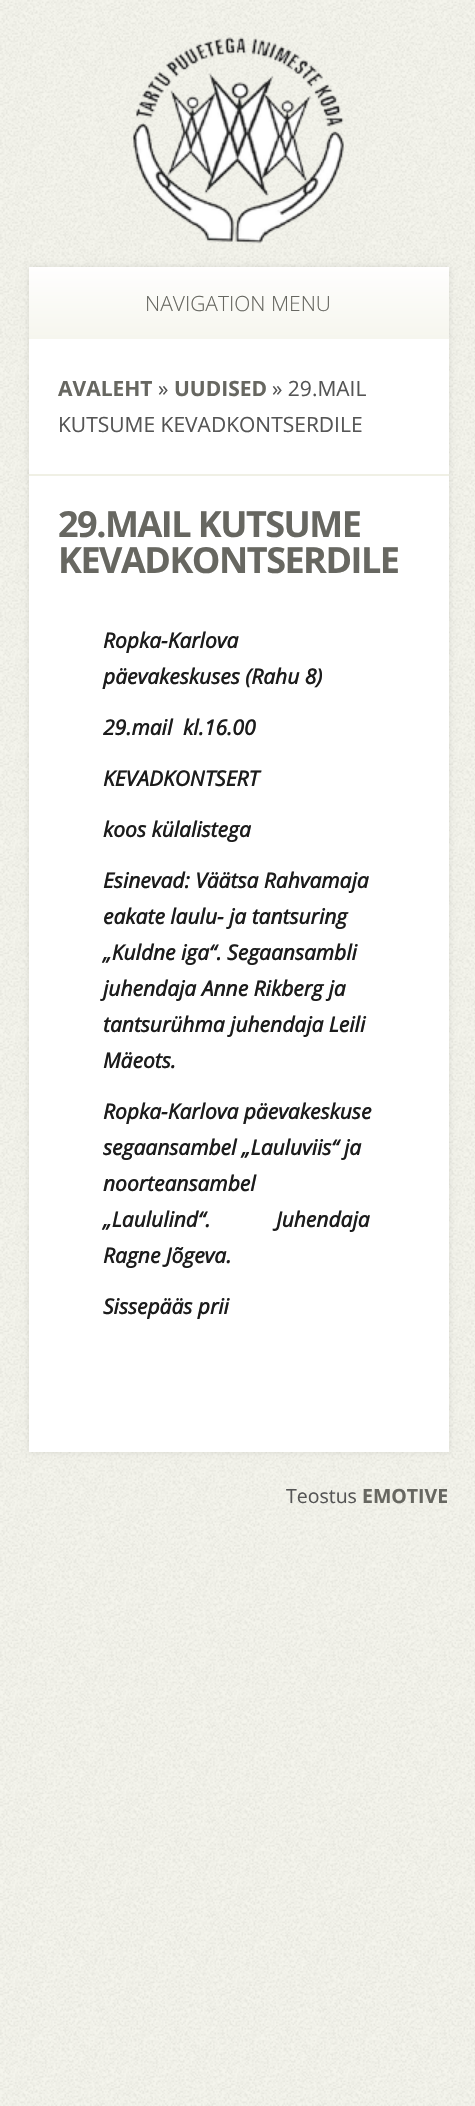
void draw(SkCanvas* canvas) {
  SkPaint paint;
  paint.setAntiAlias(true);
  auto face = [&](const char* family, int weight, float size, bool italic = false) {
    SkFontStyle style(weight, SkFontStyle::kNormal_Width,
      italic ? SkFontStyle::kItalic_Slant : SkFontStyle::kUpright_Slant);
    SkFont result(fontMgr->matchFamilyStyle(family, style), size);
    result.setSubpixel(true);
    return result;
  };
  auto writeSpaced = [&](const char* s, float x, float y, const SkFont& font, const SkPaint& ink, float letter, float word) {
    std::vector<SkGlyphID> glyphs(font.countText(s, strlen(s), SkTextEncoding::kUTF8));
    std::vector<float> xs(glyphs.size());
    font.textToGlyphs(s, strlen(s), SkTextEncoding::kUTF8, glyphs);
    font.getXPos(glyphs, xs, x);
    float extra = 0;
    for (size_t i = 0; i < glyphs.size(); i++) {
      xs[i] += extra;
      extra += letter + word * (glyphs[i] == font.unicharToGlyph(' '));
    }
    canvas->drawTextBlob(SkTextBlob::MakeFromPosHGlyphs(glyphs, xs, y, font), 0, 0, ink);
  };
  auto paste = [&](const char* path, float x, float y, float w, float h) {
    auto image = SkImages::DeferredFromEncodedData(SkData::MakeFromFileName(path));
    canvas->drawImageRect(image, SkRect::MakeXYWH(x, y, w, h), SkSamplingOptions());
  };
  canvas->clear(0xfff5f5ec);
  paste("img/1.png", 0, 0, 475, 2106);
  paste("img/2.png", 132, 37, 212, 207);
  paint.setColor(0x1a000000);
  paint.setMaskFilter(SkMaskFilter::MakeBlur(kNormal_SkBlurStyle, 3));
  canvas->drawRect(SkRect::MakeXYWH(29, 267, 420, 1185), paint);
  paint.setMaskFilter(nullptr);
  paint.setColor(0xffffffff);
  canvas->drawRect(SkRect::MakeXYWH(29, 339, 420, 1113), paint);
  {
    const SkColor colors[] = {0xfffffefe, 0xfff6f6ee};
    const float stops[] = {0, 1};
    const SkPoint ends[] = {{239, 267}, {239, 339}};
    paint.setShader(SkGradientShader::MakeLinear(ends, colors, stops, 2, SkTileMode::kClamp));
    paint.setAlpha(255);
  }
  canvas->drawRect(SkRect::MakeXYWH(29, 267, 420, 72), paint);
  paint.setShader(nullptr);
  paint.setColor(0xfff0f0e5);
  canvas->drawRect(SkRect::MakeXYWH(29, 474, 420, 2), paint);
  auto f0 = face("Open Sans", 300, 21);
  paint.setColor(0xff676761);
  canvas->drawString("NAVIGATION MENU", 145, 311, f0, paint);
  auto f1 = face("Open Sans", 700, 21);
  canvas->drawString("AVALEHT", 58, 396, f1, paint);
  auto f2 = face("Open Sans", 400, 21);
  paint.setColor(0xff555555);
  canvas->drawString("»", 158, 396, f2, paint);
  paint.setColor(0xff676761);
  canvas->drawString("UUDISED", 174, 396, f1, paint);
  paint.setColor(0xff555555);
  canvas->drawString("» 29.MAIL", 272, 396, f2, paint);
  canvas->drawString("KUTSUME KEVADKONTSERDILE", 58, 432, f2, paint);
  auto f3 = face("Open Sans", 700, 36);
  paint.setColor(0xff676761);
  writeSpaced("29.MAIL KUTSUME", 58, 537, f3, paint, -1.5f, 0);
  writeSpaced("KEVADKONTSERDILE", 58, 573, f3, paint, -1.5f, 0);
  auto f4 = face("Open Sans", 700, 21, true);
  paint.setColor(0xff1c1c1c);
  {
    const struct { const char* s; float x, y; } items[] = {
      {"Ropka-Karlova", 103, 648},
      {"päevakeskuses (Rahu 8)", 103, 684},
      {"29.mail  kl.16.00", 103, 735},
      {"KEVADKONTSERT", 103, 786},
      {"koos külalistega", 103, 837},
      {"Esinevad: Väätsa Rahvamaja", 103, 888},
      {"eakate laulu- ja tantsuring", 103, 924},
      {"„Kuldne iga“. Segaansambli", 103, 960},
      {"juhendaja Anne Rikberg ja", 103, 996},
      {"tantsurühma juhendaja Leili", 103, 1032},
      {"Mäeots.", 103, 1068},
      {"Ropka-Karlova päevakeskuse", 103, 1119},
      {"segaansambel „Lauluviis“ ja", 103, 1155},
      {"noorteansambel", 103, 1191},
      {"„Laululind“.            Juhendaja", 103, 1227},
      {"Ragne Jõgeva.", 103, 1263},
      {"Sissepääs prii", 103, 1314},
    };
    for (auto [s, x, y] : items) {
      canvas->drawString(s, x, y, f4, paint);
    }
  }
  auto f5 = face("Open Sans", 400, 19.5f);
  paint.setColor(0xff555555);
  canvas->drawString("Teostus", 286, 1503, f5, paint);
  auto f6 = face("Open Sans", 700, 19.5f);
  paint.setColor(0xff676761);
  canvas->drawString("EMOTIVE", 362, 1503, f6, paint);
}
